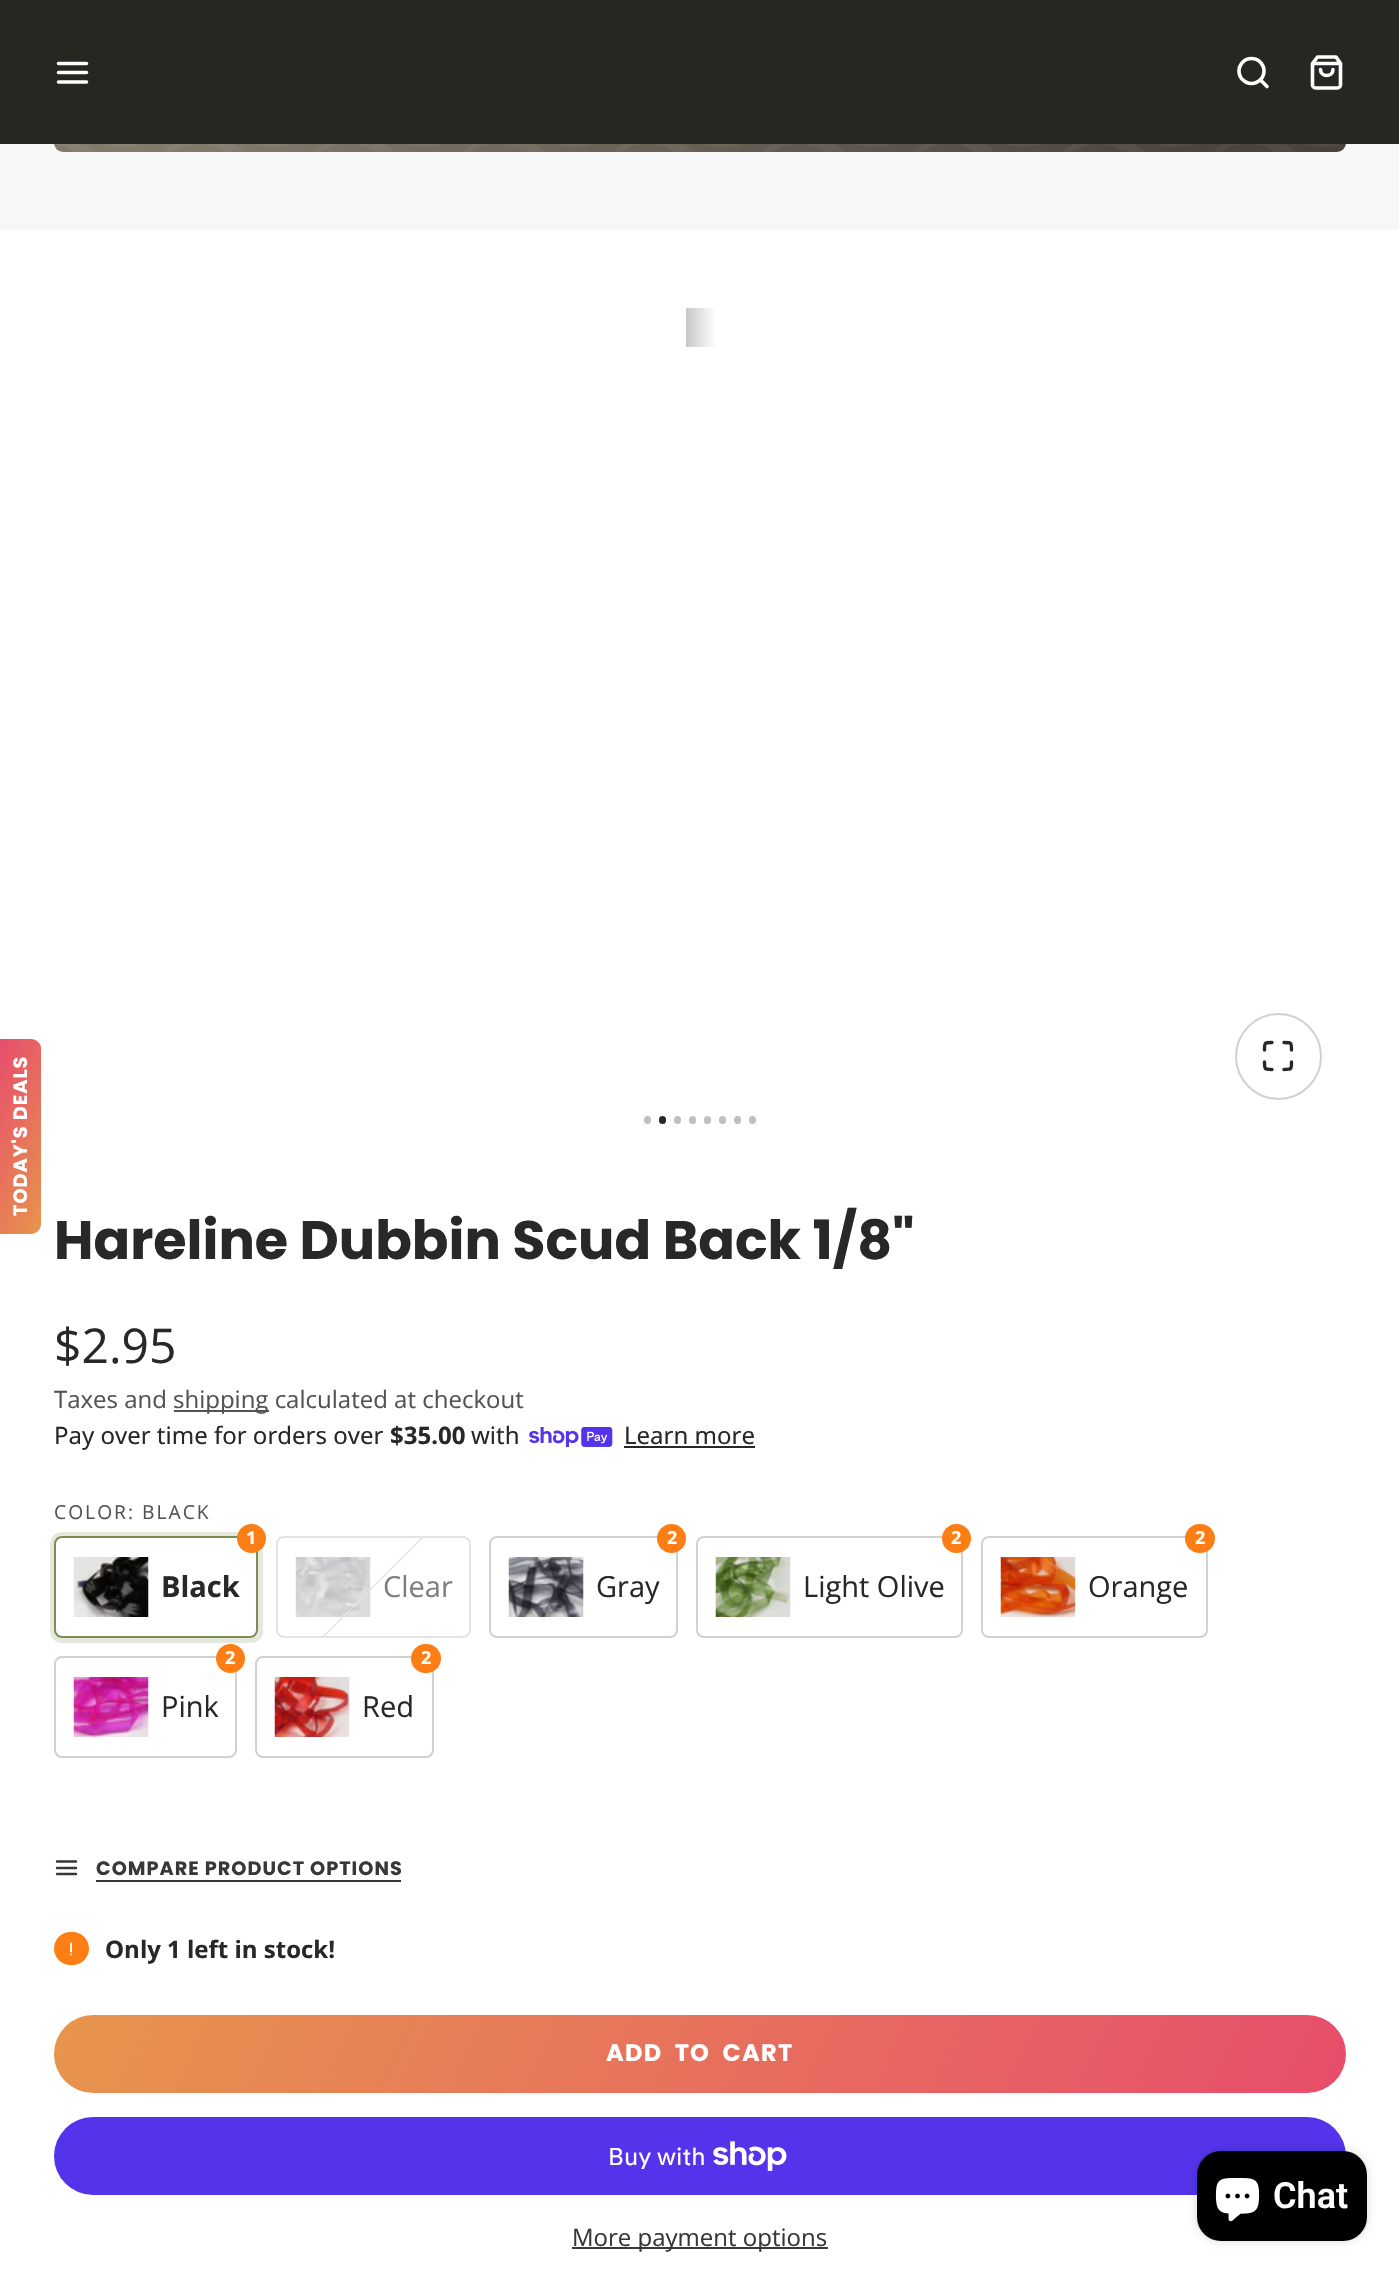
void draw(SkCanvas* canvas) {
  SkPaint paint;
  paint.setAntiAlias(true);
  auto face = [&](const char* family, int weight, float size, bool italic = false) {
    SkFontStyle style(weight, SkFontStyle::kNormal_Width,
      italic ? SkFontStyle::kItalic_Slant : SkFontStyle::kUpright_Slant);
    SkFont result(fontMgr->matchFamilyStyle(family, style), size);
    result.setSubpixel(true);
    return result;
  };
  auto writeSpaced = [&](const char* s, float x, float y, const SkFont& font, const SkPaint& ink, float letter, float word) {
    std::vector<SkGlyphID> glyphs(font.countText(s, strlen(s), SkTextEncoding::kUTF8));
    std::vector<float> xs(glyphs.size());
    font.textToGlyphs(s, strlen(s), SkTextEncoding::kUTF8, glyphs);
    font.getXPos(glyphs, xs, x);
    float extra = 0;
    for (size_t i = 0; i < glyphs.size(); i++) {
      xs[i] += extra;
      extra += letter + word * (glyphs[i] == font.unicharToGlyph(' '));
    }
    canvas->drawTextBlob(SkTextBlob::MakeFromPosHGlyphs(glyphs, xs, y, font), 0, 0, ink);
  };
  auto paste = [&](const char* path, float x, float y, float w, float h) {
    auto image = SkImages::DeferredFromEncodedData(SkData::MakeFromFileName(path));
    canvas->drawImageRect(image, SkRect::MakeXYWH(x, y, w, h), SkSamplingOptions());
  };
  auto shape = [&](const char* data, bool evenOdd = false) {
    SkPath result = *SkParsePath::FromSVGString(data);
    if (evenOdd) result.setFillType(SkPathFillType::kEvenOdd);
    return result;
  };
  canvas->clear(0xfff7f7f7);
  {
    const SkColor colors[] = {0xff847a6c, 0xff49433b};
    const float stops[] = {0.1f, 0.9f};
    const SkPoint ends[] = {{51, -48}, {1349, -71}};
    paint.setShader(SkGradientShader::MakeLinear(ends, colors, stops, 2, SkTileMode::kClamp));
    paint.setAlpha(255);
  }
  canvas->drawRoundRect(SkRect::MakeXYWH(54, -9, 1292, 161), 9, 9, paint);
  paste("img/1.png", 56, 144, 1284, 8);
  paint.setShader(nullptr);
  paint.setColor(0xff252720);
  canvas->drawRect(SkRect::MakeXYWH(0, 0, 1399, 144), paint);
  paint.setStroke(true);
  paint.setStrokeWidth(3.6f);
  paint.setStrokeCap(SkPaint::kRound_Cap);
  paint.setStrokeJoin(SkPaint::kRound_Join);
  paint.setColor(0xffffffff);
  canvas->drawPath(shape("M58.5 72.5H86.5M58.5 63.5H86.5M58.5 82H86.5"), paint);
  paint.setStrokeCap(SkPaint::kButt_Cap);
  paint.setStrokeJoin(SkPaint::kMiter_Join);
  canvas->drawCircle(1251.5f, 71, 12.5f, paint);
  paint.setStrokeCap(SkPaint::kRound_Cap);
  paint.setStrokeJoin(SkPaint::kRound_Join);
  canvas->drawPath(shape("M1267 86.5L1260.5 80"), paint);
  canvas->drawPath(shape("M1317.5 57L1312.5 63.5V85C1312.5 86.5 1314 88 1315.5 88H1337.5C1339 88 1340.5 86.5 1340.5 85V63.5L1336 57ZM1314 63.5H1339.5M1333 69.5C1333 77.5 1320.5 77.5 1320.5 69.5"), paint);
  paint.setStroke(false);
  canvas->drawRect(SkRect::MakeXYWH(0, 230, 1399, 2042), paint);
  {
    const SkColor colors[] = {0xffe7954d, 0xffe74d6c};
    const float stops[] = {0, 1};
    const SkPoint ends[] = {{75, 1162}, {-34, 1111}};
    paint.setShader(SkGradientShader::MakeLinear(ends, colors, stops, 2, SkTileMode::kClamp));
    paint.setAlpha(255);
  }
  canvas->drawPath(shape("M31 1234H0V1039H31C36 1039 41 1043 41 1048V1224C41 1230 36 1234 31 1234Z"), paint);
  {
    const SkColor colors[] = {0xffffffff, 0xffc7c7c7, 0xffffffff};
    const float stops[] = {0, 0.5f, 1};
    const SkPoint ends[] = {{656, 327}, {716, 327}};
    paint.setShader(SkGradientShader::MakeLinear(ends, colors, stops, 3, SkTileMode::kClamp));
    paint.setAlpha(255);
  }
  canvas->drawRect(SkRect::MakeXYWH(686, 308, 29, 39), paint);
  paint.setShader(nullptr);
  paint.setColor(0xffbfbfbf);
  canvas->drawRoundRect(SkRect::MakeXYWH(644, 1116, 7, 8), 3.5f, 3.5f, paint);
  paint.setColor(0xff282828);
  canvas->drawRoundRect(SkRect::MakeXYWH(659, 1116, 7, 8), 3.5f, 3.5f, paint);
  paint.setColor(0xffbfbfbf);
  canvas->drawRoundRect(SkRect::MakeXYWH(674, 1116, 7, 8), 3.5f, 3.5f, paint);
  canvas->drawRoundRect(SkRect::MakeXYWH(689, 1116, 7, 8), 3.5f, 3.5f, paint);
  canvas->drawRoundRect(SkRect::MakeXYWH(704, 1116, 7, 8), 3.5f, 3.5f, paint);
  canvas->drawRoundRect(SkRect::MakeXYWH(719, 1116, 7, 8), 3.5f, 3.5f, paint);
  canvas->drawRoundRect(SkRect::MakeXYWH(734, 1116, 7, 8), 3.5f, 3.5f, paint);
  canvas->drawRoundRect(SkRect::MakeXYWH(749, 1116, 7, 8), 3.5f, 3.5f, paint);
  paint.setStroke(true);
  paint.setStrokeWidth(2);
  paint.setStrokeCap(SkPaint::kButt_Cap);
  paint.setStrokeJoin(SkPaint::kMiter_Join);
  paint.setColor(0xffd1d1d1);
  canvas->drawCircle(1278.5f, 1056.5f, 42.5f, paint);
  paint.setStrokeWidth(3.4f);
  paint.setStrokeCap(SkPaint::kRound_Cap);
  paint.setStrokeJoin(SkPaint::kRound_Join);
  paint.setColor(0xff282828);
  canvas->drawPath(shape("M1272 1042.5C1264.5 1042.5 1264.5 1042.5 1264.5 1050M1291.5 1050C1291.5 1042.5 1291.5 1042.5 1284 1042.5M1284 1069.5C1291.5 1069.5 1291.5 1069.5 1291.5 1062M1264.5 1062C1264.5 1069.5 1264.5 1069.5 1272 1069.5"), paint);
  paint.setStroke(false);
  paint.setColor(0xff535353);
  canvas->drawRect(SkRect::MakeXYWH(174, 1410, 95, 2), paint);
  paste("img/2.png", 529, 1427, 84, 21);
  paint.setColor(0xff282828);
  canvas->drawRect(SkRect::MakeXYWH(624, 1446, 131, 2), paint);
  paint.setStroke(true);
  paint.setStrokeWidth(5);
  paint.setStrokeCap(SkPaint::kButt_Cap);
  paint.setStrokeJoin(SkPaint::kMiter_Join);
  paint.setColor(0xffe5e8dc);
  canvas->drawRoundRect(SkRect::MakeXYWH(52.5f, 1534.5f, 208, 106), 9.5f, 9.5f, paint);
  paint.setStroke(false);
  paint.setColor(0xffffffff);
  canvas->drawRoundRect(SkRect::MakeXYWH(55, 1537, 202, 100), 7, 7, paint);
  paint.setStroke(true);
  paint.setStrokeWidth(2);
  paint.setColor(0xff7b8e51);
  canvas->drawRoundRect(SkRect::MakeXYWH(55, 1537, 202, 100), 7, 7, paint);
  paint.setStroke(false);
  paint.setColor(0xfffd7e14);
  canvas->drawCircle(251.5f, 1538.5f, 14.5f, paint);
  paste("img/3.png", 73, 1557, 76, 60);
  paint.setStroke(true);
  paint.setColor(0xffe3e3e3);
  canvas->drawRoundRect(SkRect::MakeXYWH(277, 1537, 193, 100), 7, 7, paint);
  paste("img/4.png", 295, 1557, 76, 60);
  paint.setColor(0xffd1d1d1);
  canvas->drawRoundRect(SkRect::MakeXYWH(490, 1537, 187, 100), 7, 7, paint);
  paint.setStroke(false);
  paint.setColor(0xfffd7e14);
  canvas->drawCircle(671.5f, 1538.5f, 14.5f, paint);
  paste("img/5.png", 508, 1557, 76, 60);
  paint.setStroke(true);
  paint.setColor(0xffd1d1d1);
  canvas->drawRoundRect(SkRect::MakeXYWH(697, 1537, 265, 100), 7, 7, paint);
  paint.setStroke(false);
  paint.setColor(0xfffd7e14);
  canvas->drawCircle(956.5f, 1538.5f, 14.5f, paint);
  paste("img/6.png", 715, 1557, 76, 60);
  paint.setStroke(true);
  paint.setColor(0xffd1d1d1);
  canvas->drawRoundRect(SkRect::MakeXYWH(982, 1537, 225, 100), 7, 7, paint);
  paint.setStroke(false);
  paint.setColor(0xfffd7e14);
  canvas->drawRoundRect(SkRect::MakeXYWH(1185, 1524, 30, 29), 14.5f, 14.5f, paint);
  paste("img/7.png", 1000, 1557, 76, 60);
  paint.setStroke(true);
  paint.setColor(0xffd1d1d1);
  canvas->drawRoundRect(SkRect::MakeXYWH(55, 1657, 181, 100), 7, 7, paint);
  paint.setStroke(false);
  paint.setColor(0xfffd7e14);
  canvas->drawCircle(230.5f, 1658.5f, 14.5f, paint);
  paste("img/8.png", 73, 1677, 76, 60);
  paint.setStroke(true);
  paint.setColor(0xffd1d1d1);
  canvas->drawRoundRect(SkRect::MakeXYWH(256, 1657, 177, 100), 7, 7, paint);
  paint.setStroke(false);
  paint.setColor(0xfffd7e14);
  canvas->drawRoundRect(SkRect::MakeXYWH(411, 1644, 30, 29), 14.5f, 14.5f, paint);
  paste("img/9.png", 274, 1677, 76, 60);
  paint.setStroke(true);
  paint.setStrokeWidth(2.4f);
  paint.setStrokeCap(SkPaint::kRound_Cap);
  paint.setStrokeJoin(SkPaint::kRound_Join);
  paint.setColor(0xff383838);
  canvas->drawPath(shape("M57 1868H76M57 1861.5H76M57 1874H76"), paint);
  paint.setStroke(false);
  canvas->drawRect(SkRect::MakeXYWH(96, 1880, 305, 2), paint);
  paint.setColor(0xfffd7e14);
  canvas->drawRoundRect(SkRect::MakeXYWH(54, 1932, 35, 33), 16.5f, 16.5f, paint);
  paint.setStroke(true);
  paint.setStrokeWidth(1.8f);
  paint.setColor(0xffffffff);
  canvas->drawPath(shape("M71 1954.5H71M71 1951.5V1943.5"), paint);
  paint.setStroke(false);
  {
    const SkColor colors[] = {0xffe7954d, 0xffe74d6c};
    const float stops[] = {0, 1};
    const SkPoint ends[] = {{154, 1799}, {1245, 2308}};
    paint.setShader(SkGradientShader::MakeLinear(ends, colors, stops, 2, SkTileMode::kClamp));
    paint.setAlpha(255);
  }
  canvas->drawRoundRect(SkRect::MakeXYWH(54, 2015, 1292, 78), 39, 39, paint);
  paint.setShader(nullptr);
  paint.setColor(0xff5433eb);
  canvas->drawRoundRect(SkRect::MakeXYWH(54, 2117, 1292, 78), 39, 39, paint);
  paste("img/10.png", 713, 2141, 74, 30);
  paint.setColor(0xff383838);
  canvas->drawRect(SkRect::MakeXYWH(572, 2247, 256, 2), paint);
  paint.setColor(0x26000000);
  paint.setMaskFilter(SkMaskFilter::MakeBlur(kNormal_SkBlurStyle, 4));
  canvas->drawRoundRect(SkRect::MakeXYWH(1197, 2151, 170, 90), 24, 24, paint);
  paint.setMaskFilter(nullptr);
  paint.setColor(0xff000000);
  canvas->drawRoundRect(SkRect::MakeXYWH(1197, 2151, 170, 90), 24, 24, paint);
  paste("img/11.png", 1215, 2178, 45, 44);
  auto f0 = face("Poppins", 700, 19.25f);
  paint.setColor(0xffffffff);
  canvas->save();
  canvas->rotate(-90, 27, 1216);
  writeSpaced("TODAY'S DEALS", 27, 1216, f0, paint, 1, 0);
  canvas->restore();
  auto f1 = face("Poppins", 700, 54);
  paint.setColor(0xff282828);
  canvas->drawString("Hareline Dubbin Scud Back 1/8\"", 54, 1259, f1, paint);
  auto f2 = face("Open Sans", 400, 48);
  canvas->drawString("$2.95", 54, 1363, f2, paint);
  auto f3 = face("Open Sans", 400, 24);
  paint.setColor(0xff535353);
  canvas->drawString("Taxes and", 54, 1408, f3, paint);
  canvas->drawString("shipping calculated at checkout", 173, 1408, f3, paint);
  auto f4 = face("Noto Sans", 400, 24);
  paint.setColor(0xff282828);
  canvas->drawString("Pay over time for orders over", 54, 1444, f4, paint);
  auto f5 = face("Noto Sans", 700, 24);
  canvas->drawString("$35.00", 390, 1444, f5, paint);
  canvas->drawString("with", 471, 1444, f4, paint);
  canvas->drawString("Learn more", 624, 1444, f4, paint);
  auto f6 = face("Open Sans", 400, 19.25f);
  paint.setColor(0xff535353);
  writeSpaced("COLOR: BLACK", 54, 1519, f6, paint, 2, 0);
  auto f7 = face("Open Sans", 700, 18);
  paint.setColor(0xffffffff);
  canvas->drawString("1", 246, 1544, f7, paint);
  auto f8 = face("Open Sans", 700, 29);
  paint.setColor(0xff282828);
  canvas->drawString("Black", 161, 1597, f8, paint);
  auto f9 = face("Open Sans", 400, 29);
  paint.setColor(0xff7e7e7e);
  canvas->drawString("Clear", 383, 1597, f9, paint);
  paint.setColor(0xffe3e3e3);
  canvas->drawPath(shape("M423 1538L324 1637H322L421 1538Z"), paint);
  paint.setColor(0xffffffff);
  canvas->drawString("2", 667, 1544, f7, paint);
  paint.setColor(0xff282828);
  canvas->drawString("Gray", 596, 1597, f9, paint);
  paint.setColor(0xffffffff);
  canvas->drawString("2", 951, 1544, f7, paint);
  paint.setColor(0xff282828);
  canvas->drawString("Light Olive", 803, 1597, f9, paint);
  paint.setColor(0xffffffff);
  canvas->drawString("2", 1195, 1544, f7, paint);
  paint.setColor(0xff282828);
  canvas->drawString("Orange", 1088, 1597, f9, paint);
  paint.setColor(0xffffffff);
  canvas->drawString("2", 225, 1664, f7, paint);
  paint.setColor(0xff282828);
  canvas->drawString("Pink", 161, 1717, f9, paint);
  paint.setColor(0xffffffff);
  canvas->drawString("2", 421, 1664, f7, paint);
  paint.setColor(0xff282828);
  canvas->drawString("Red", 362, 1717, f9, paint);
  paint.setColor(0xff383838);
  writeSpaced("COMPARE PRODUCT OPTIONS", 96, 1875, f0, paint, 1, 0);
  auto f10 = face("Open Sans", 700, 24);
  paint.setColor(0xff282828);
  canvas->drawString("Only 1 left in stock!", 105, 1958, f10, paint);
  auto f11 = face("Poppins", 700, 24);
  paint.setColor(0xffffffff);
  writeSpaced("ADD TO CART", 606, 2061, f11, paint, 1.25f, 6);
  auto f12 = face("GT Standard", 400, 24);
  canvas->drawString("Buy with", 608, 2165, f12, paint);
  paint.setColor(0xff383838);
  canvas->drawString("More payment options", 572, 2246, f3, paint);
  auto f13 = face("Roboto", 600, 36);
  paint.setColor(0xffffffff);
  canvas->drawString("Chat", 1273, 2208, f13, paint);
}
